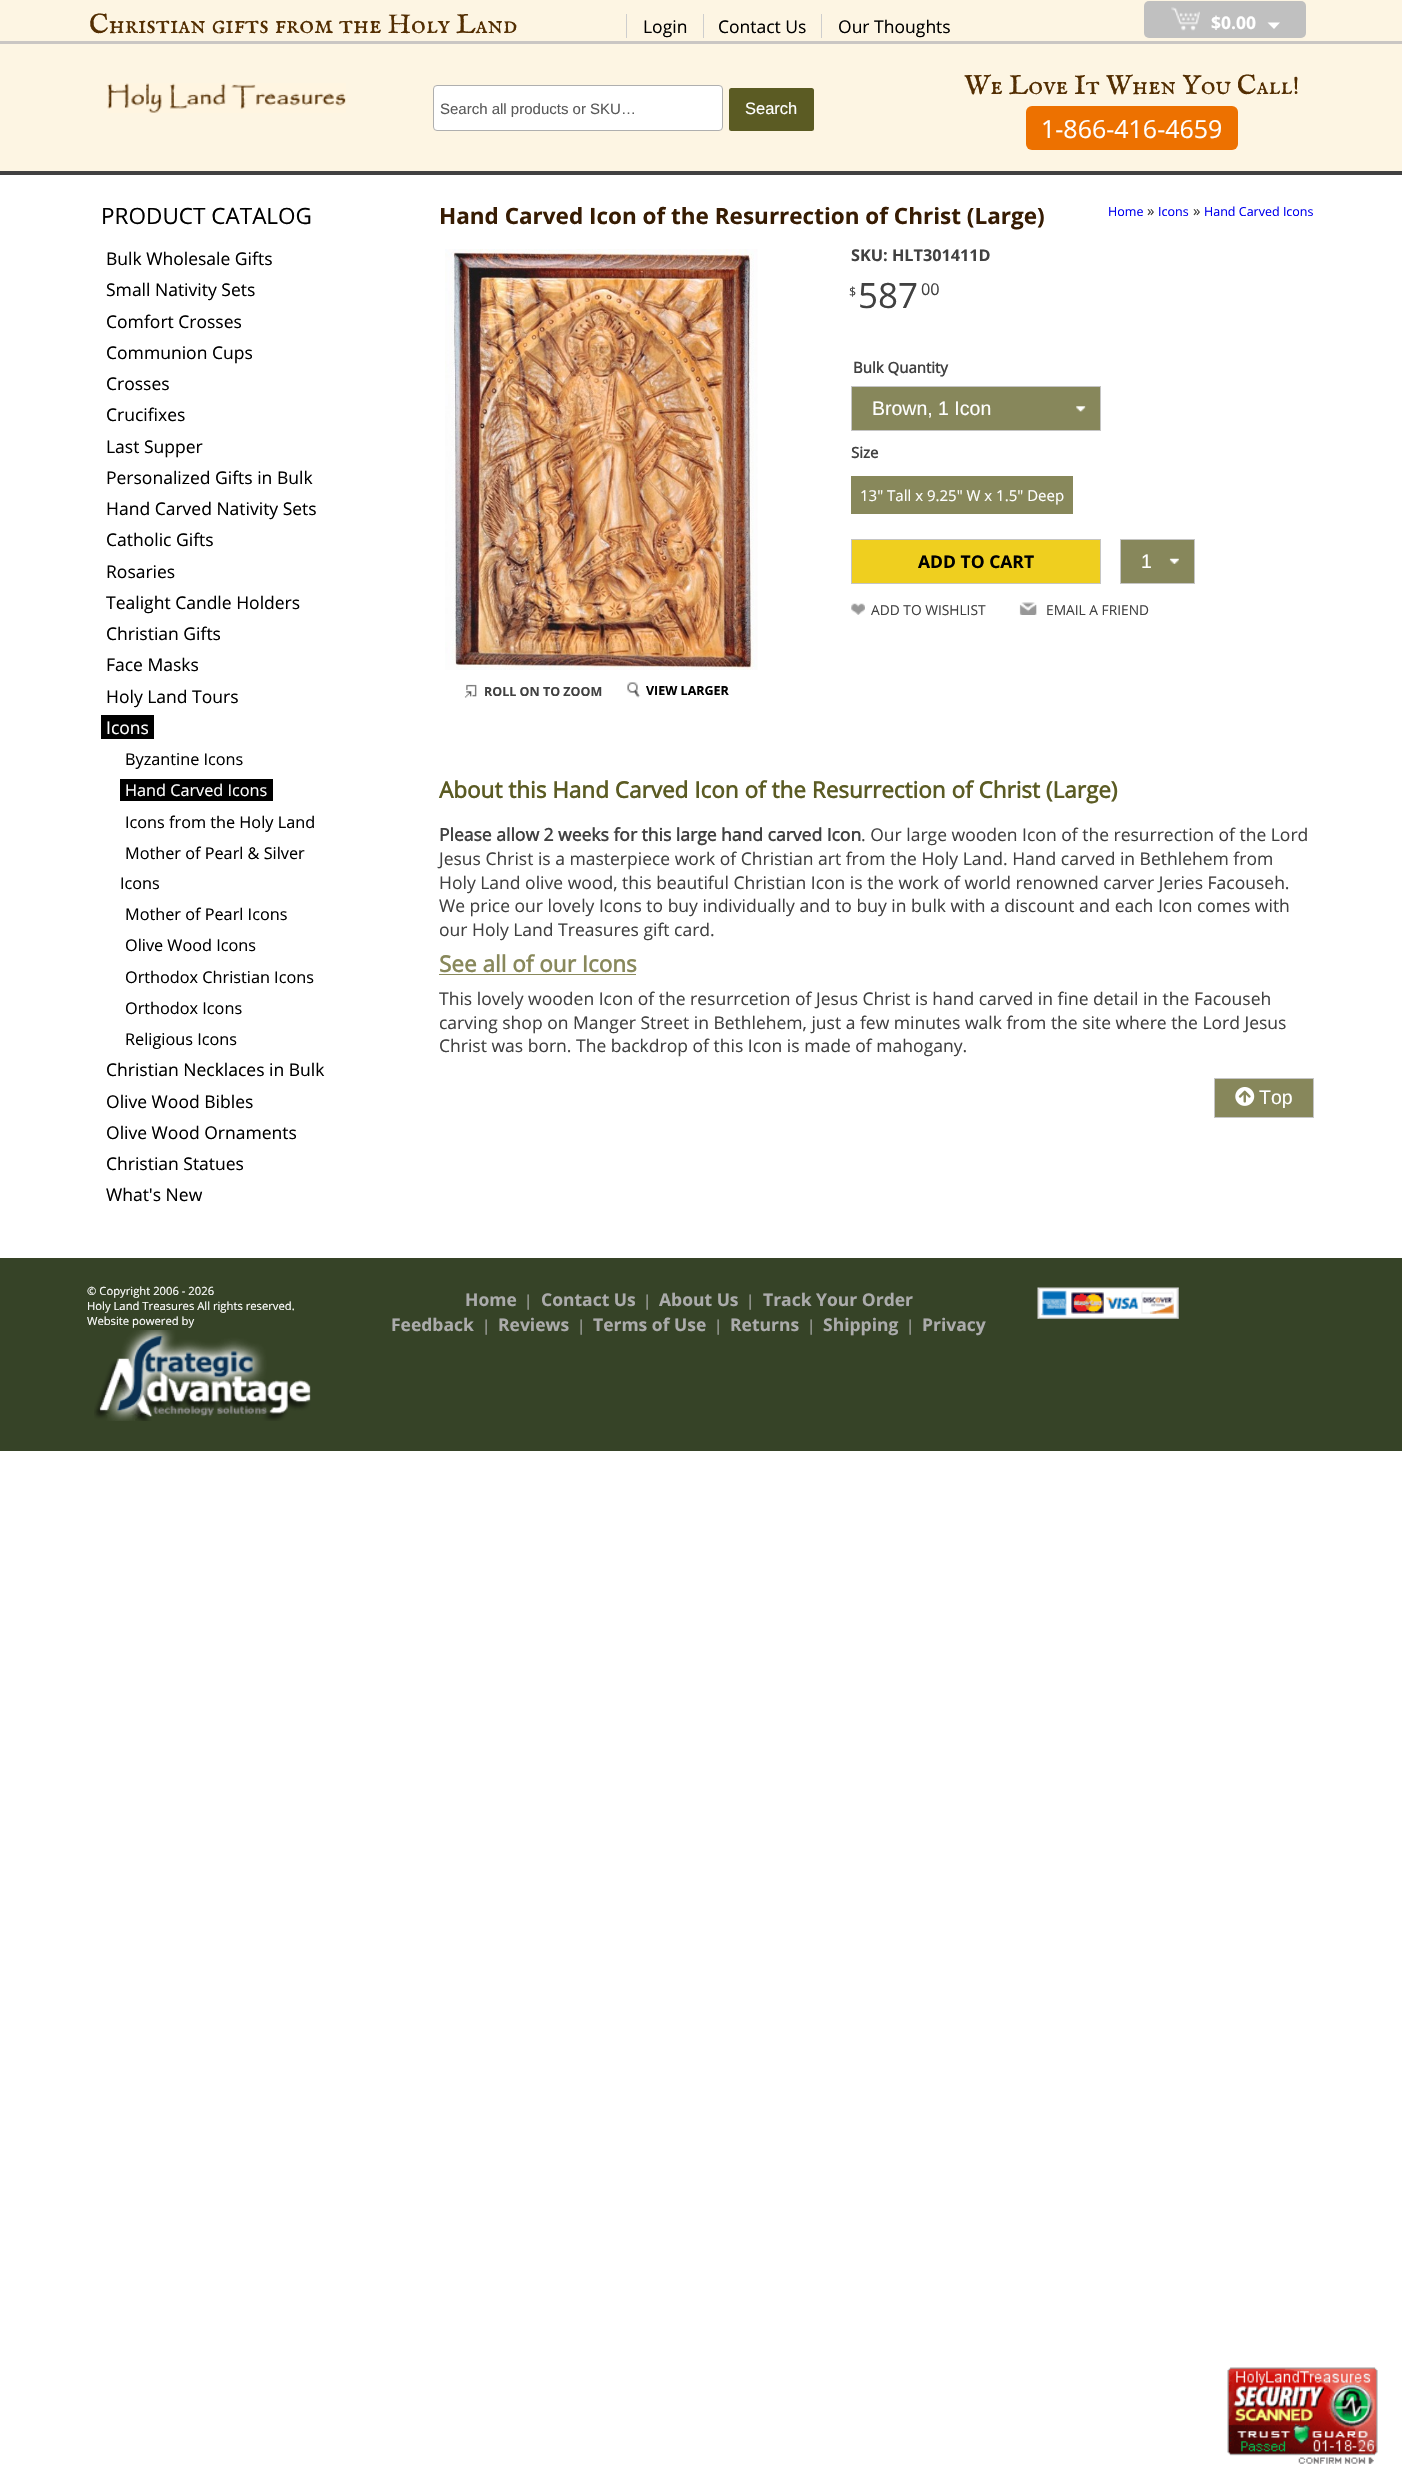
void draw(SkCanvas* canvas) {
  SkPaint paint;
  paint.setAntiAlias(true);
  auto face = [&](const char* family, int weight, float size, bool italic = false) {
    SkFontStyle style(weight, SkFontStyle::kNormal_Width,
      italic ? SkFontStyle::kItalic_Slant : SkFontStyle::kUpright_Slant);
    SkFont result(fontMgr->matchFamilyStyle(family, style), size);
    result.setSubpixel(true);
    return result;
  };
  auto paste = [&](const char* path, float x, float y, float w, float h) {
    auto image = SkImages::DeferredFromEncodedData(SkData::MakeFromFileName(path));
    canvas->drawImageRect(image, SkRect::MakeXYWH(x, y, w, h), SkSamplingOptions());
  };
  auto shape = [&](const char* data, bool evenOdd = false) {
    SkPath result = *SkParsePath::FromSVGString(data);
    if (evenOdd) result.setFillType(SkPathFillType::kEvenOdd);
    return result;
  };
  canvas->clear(0xffffffff);
  {
    const struct { float x, y, w, h; SkColor color; } items[] = {
      {0, 0, 1402, 171, 0xfffdf5e3},
      {0, 171, 1402, 4, 0xff414141},
      {0, 41, 1402, 3, 0xffcac6c3},
      {626, 14, 1, 24, 0xffcecece},
      {703, 14, 1, 24, 0xffcecece},
      {821, 14, 1, 24, 0xffcecece},
    };
    for (auto [x, y, w, h, color] : items) {
      paint.setColor(color);
      canvas->drawRect(SkRect::MakeXYWH(x, y, w, h), paint);
    }
  }
  paint.setColor(0xffc0c0c0);
  canvas->drawRoundRect(SkRect::MakeXYWH(1144, 1, 162, 37), 5, 5, paint);
  paste("img/1.png", 1171, 7, 29, 24);
  paint.setColor(0xffffffff);
  canvas->drawPath(shape("M1267.5 22.5H1280L1274 29Z"), paint);
  paste("img/2.png", 107, 83, 239, 30);
  canvas->drawRoundRect(SkRect::MakeXYWH(433.5f, 85.5f, 289, 45), 3.5f, 3.5f, paint);
  paint.setStroke(true);
  paint.setStrokeWidth(1);
  paint.setColor(0xffafafaf);
  canvas->drawRoundRect(SkRect::MakeXYWH(433.5f, 85.5f, 289, 45), 3.5f, 3.5f, paint);
  paint.setStroke(false);
  paint.setColor(0xff5b5b23);
  canvas->drawRoundRect(SkRect::MakeXYWH(729, 88, 85, 43), 2.5f, 2.5f, paint);
  paint.setColor(0xffed7100);
  canvas->drawRoundRect(SkRect::MakeXYWH(1026, 106, 212, 44), 6, 6, paint);
  paint.setColor(0xff000000);
  canvas->drawRect(SkRect::MakeXYWH(101, 715, 53, 24), paint);
  canvas->drawRect(SkRect::MakeXYWH(120, 779, 153, 22), paint);
  paint.setColor(0xff87875b);
  canvas->drawRect(SkRect::MakeXYWH(851.5f, 386.5f, 249, 44), paint);
  paint.setStroke(true);
  paint.setColor(0xffc5c5c5);
  canvas->drawRect(SkRect::MakeXYWH(851.5f, 386.5f, 249, 44), paint);
  paste("img/3.png", 1076, 406, 10, 6);
  paint.setStroke(false);
  paint.setColor(0xff88885b);
  canvas->drawRect(SkRect::MakeXYWH(851, 476, 222, 38), paint);
  paint.setColor(0xffefcf1f);
  canvas->drawRect(SkRect::MakeXYWH(851.5f, 539.5f, 249, 44), paint);
  paint.setStroke(true);
  paint.setColor(0xffc5c5c5);
  canvas->drawRect(SkRect::MakeXYWH(851.5f, 539.5f, 249, 44), paint);
  paint.setStroke(false);
  paint.setColor(0xff87875b);
  canvas->drawRect(SkRect::MakeXYWH(1120.5f, 539.5f, 74, 44), paint);
  paint.setStroke(true);
  paint.setColor(0xffc5c5c5);
  canvas->drawRect(SkRect::MakeXYWH(1120.5f, 539.5f, 74, 44), paint);
  paste("img/4.png", 1169, 558, 10, 6);
  paste("img/5.png", 851, 603, 14, 12);
  paste("img/6.png", 1019, 602, 18, 13);
  paste("img/7.png", 445, 249, 313, 421);
  paste("img/8.png", 464, 684, 13, 14);
  paste("img/9.png", 627, 682, 14, 16);
  paint.setStroke(false);
  paint.setColor(0xff88885b);
  canvas->drawRect(SkRect::MakeXYWH(439, 974, 197, 1), paint);
  paint.setColor(0xff87875b);
  canvas->drawRect(SkRect::MakeXYWH(1214.5f, 1078.5f, 99, 39), paint);
  paint.setStroke(true);
  paint.setColor(0xffc5c5c5);
  canvas->drawRect(SkRect::MakeXYWH(1214.5f, 1078.5f, 99, 39), paint);
  paste("img/10.png", 1235, 1087, 20, 19);
  paint.setStroke(false);
  paint.setColor(0xff364327);
  canvas->drawRect(SkRect::MakeXYWH(0, 1258, 1402, 193), paint);
  paste("img/11.png", 94, 1330, 217, 91);
  paste("img/12.png", 1227, 2367, 151, 97);
  paste("img/13.png", 1037, 1287, 142, 32);
  auto f0 = face("IM FELL English SC", 400, 27.5f);
  paint.setColor(0xff532e02);
  canvas->drawString("Christian gifts from the Holy Land", 89, 33, f0, paint);
  auto f1 = face("Open Sans", 400, 17.5f);
  paint.setColor(0xff000000);
  {
    const struct { const char* s; float x, y; } items[] = {
      {"Login", 643, 33},
      {"Contact Us", 718, 33},
      {"Our Thoughts", 838, 33},
    };
    for (auto [s, x, y] : items) {
      canvas->drawString(s, x, y, f1, paint);
    }
  }
  auto f2 = face("Open Sans", 700, 17.5f);
  paint.setColor(0xffffffff);
  canvas->drawString("$0.00", 1211, 29, f2, paint);
  auto f3 = face("Liberation Sans", 400, 15);
  paint.setColor(0xff5a5a5a);
  canvas->drawString("Search all products or SKU…", 440, 114, f3, paint);
  auto f4 = face("Liberation Sans", 400, 16.5f);
  paint.setColor(0xffffffff);
  canvas->drawString("Search", 745, 114, f4, paint);
  paint.setColor(0xff532e02);
  canvas->drawString("We Love It When You Call!", 964, 94, f0, paint);
  auto f5 = face("Open Sans", 400, 25);
  paint.setColor(0xffffffff);
  canvas->drawString("1-866-416-4659", 1041, 138, f5, paint);
  auto f6 = face("Open Sans", 400, 22.5f);
  paint.setColor(0xff000000);
  canvas->drawString("PRODUCT CATALOG", 101, 224, f6, paint);
  {
    const struct { const char* s; float x, y; } items[] = {
      {"Bulk Wholesale Gifts", 106, 265},
      {"Small Nativity Sets", 106, 296},
      {"Comfort Crosses", 106, 328},
      {"Communion Cups", 106, 359},
      {"Crosses", 106, 390},
      {"Crucifixes", 106, 421},
      {"Last Supper", 106, 453},
      {"Personalized Gifts in Bulk", 106, 484},
      {"Hand Carved Nativity Sets", 106, 515},
      {"Catholic Gifts", 106, 546},
      {"Rosaries", 106, 578},
      {"Tealight Candle Holders", 106, 609},
      {"Christian Gifts", 106, 640},
      {"Face Masks", 106, 671},
      {"Holy Land Tours", 106, 703},
    };
    for (auto [s, x, y] : items) {
      canvas->drawString(s, x, y, f1, paint);
    }
  }
  paint.setColor(0xffffffff);
  canvas->drawString("Icons", 106, 734, f1, paint);
  auto f7 = face("Open Sans", 400, 16.25f);
  paint.setColor(0xff000000);
  canvas->drawString("Byzantine Icons", 125, 765, f7, paint);
  paint.setColor(0xffffffff);
  canvas->drawString("Hand Carved Icons", 125, 796, f7, paint);
  paint.setColor(0xff000000);
  {
    const struct { const char* s; float x, y; } items[] = {
      {"Icons from the Holy Land", 125, 828},
      {"Mother of Pearl & Silver", 125, 859},
      {"Icons", 120, 889},
      {"Mother of Pearl Icons", 125, 920},
      {"Olive Wood Icons", 125, 951},
      {"Orthodox Christian Icons", 125, 983},
      {"Orthodox Icons", 125, 1014},
      {"Religious Icons", 125, 1045},
    };
    for (auto [s, x, y] : items) {
      canvas->drawString(s, x, y, f7, paint);
    }
  }
  {
    const struct { const char* s; float x, y; } items[] = {
      {"Christian Necklaces in Bulk", 106, 1076},
      {"Olive Wood Bibles", 106, 1108},
      {"Olive Wood Ornaments", 106, 1139},
      {"Christian Statues", 106, 1170},
      {"What's New", 106, 1201},
    };
    for (auto [s, x, y] : items) {
      canvas->drawString(s, x, y, f1, paint);
    }
  }
  auto f8 = face("Open Sans", 700, 22.5f);
  paint.setColor(0xff371c03);
  canvas->drawString("Hand Carved Icon of the Resurrection of Christ (Large)", 439, 224, f8, paint);
  auto f9 = face("Open Sans", 700, 16.25f);
  paint.setColor(0xff414141);
  canvas->drawString("SKU: HLT301411D", 851, 261, f9, paint);
  auto f10 = face("Open Sans", 400, 12.5f);
  canvas->drawString("$", 849, 296, f10, paint);
  auto f11 = face("Open Sans", 400, 35);
  canvas->drawString("587", 858, 308, f11, paint);
  canvas->drawString("00", 921, 295, f7, paint);
  auto f12 = face("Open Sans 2", 700, 15);
  canvas->drawString("Bulk Quantity", 853, 373, f12, paint);
  auto f13 = face("Liberation Sans", 400, 19.5f);
  paint.setColor(0xffffffff);
  canvas->drawString("Brown, 1 Icon", 872, 415, f13, paint);
  paint.setColor(0xff414141);
  canvas->drawString("Size", 851, 458, f12, paint);
  auto f14 = face("Open Sans", 400, 15);
  paint.setColor(0xffffffff);
  canvas->drawString("13\" Tall x 9.25\" W x 1.5\" Deep", 860, 501, f14, paint);
  paint.setColor(0xff000000);
  canvas->drawString("ADD TO CART", 918, 568, f2, paint);
  paint.setColor(0xffffffff);
  canvas->drawString("1", 1141, 568, f13, paint);
  auto f15 = face("Open Sans", 400, 13.75f);
  paint.setColor(0xff414141);
  canvas->drawString("ADD TO WISHLIST", 871, 615, f15, paint);
  canvas->drawString("EMAIL A FRIEND", 1046, 615, f15, paint);
  auto f16 = face("Open Sans", 700, 12.5f);
  canvas->drawString("ROLL ON TO ZOOM", 484, 696, f16, paint);
  paint.setColor(0xff000000);
  canvas->drawString("VIEW LARGER", 646, 695, f16, paint);
  paint.setColor(0xff0000ee);
  canvas->drawString("Home", 1108, 216, f10, paint);
  paint.setColor(0xff414141);
  canvas->drawString("»", 1147, 216, f14, paint);
  paint.setColor(0xff0000ee);
  canvas->drawString("Icons", 1158, 216, f10, paint);
  paint.setColor(0xff414141);
  canvas->drawString("»", 1193, 216, f14, paint);
  paint.setColor(0xff0000ee);
  canvas->drawString("Hand Carved Icons", 1204, 216, f10, paint);
  auto f17 = face("Open Sans 2", 700, 22.5f);
  paint.setColor(0xff5b5b23);
  canvas->drawString("About this Hand Carved Icon of the Resurrection of Christ (Large)", 439, 798, f17, paint);
  auto f18 = face("Open Sans 2", 700, 17.5f);
  paint.setColor(0xff414141);
  canvas->drawString("Please allow 2 weeks for this large hand carved Icon", 439, 841, f18, paint);
  {
    const struct { const char* s; float x, y; } items[] = {
      {". Our large wooden Icon of the resurrection of the Lord", 861, 841},
      {"Jesus Christ is a masterpiece work of Christian art from the Holy Land. Hand carved in Bethlehem from", 439, 865},
      {"Holy Land olive wood, this beautiful Christian Icon is the work of world renowned carver Jeries Facouseh.", 439, 889},
      {"We price our lovely Icons to buy individually and to buy in bulk with a discount and each Icon comes with", 439, 912},
      {"our Holy Land Treasures gift card.", 439, 936},
    };
    for (auto [s, x, y] : items) {
      canvas->drawString(s, x, y, f1, paint);
    }
  }
  paint.setColor(0xff88885b);
  canvas->drawString("See all of our Icons", 439, 972, f17, paint);
  paint.setColor(0xff414141);
  {
    const struct { const char* s; float x, y; } items[] = {
      {"This lovely wooden Icon of the resurrcetion of Jesus Christ is hand carved in fine detail in the Facouseh", 439, 1005},
      {"carving shop on Manger Street in Bethlehem, just a few minutes walk from the site where the Lord Jesus", 439, 1029},
      {"Christ was born. The backdrop of this Icon is made of mahogany.", 439, 1052},
    };
    for (auto [s, x, y] : items) {
      canvas->drawString(s, x, y, f1, paint);
    }
  }
  paint.setColor(0xffffffff);
  canvas->drawString("Top", 1259, 1104, f13, paint);
  auto f19 = face("Open Sans", 400, 11.25f);
  {
    const struct { const char* s; float x, y; } items[] = {
      {"© Copyright 2006 - 2026", 87, 1295},
      {"Holy Land Treasures All rights reserved.", 87, 1310},
      {"Website powered by", 87, 1325},
    };
    for (auto [s, x, y] : items) {
      canvas->drawString(s, x, y, f19, paint);
    }
  }
  paint.setColor(0xffababab);
  canvas->drawString("Home", 465, 1306, f2, paint);
  canvas->drawString("|", 524, 1306, f14, paint);
  canvas->drawString("Contact Us", 541, 1306, f2, paint);
  canvas->drawString("|", 643, 1306, f14, paint);
  canvas->drawString("About Us", 659, 1306, f2, paint);
  canvas->drawString("|", 746, 1306, f14, paint);
  canvas->drawString("Track Your Order", 763, 1306, f2, paint);
  canvas->drawString("Feedback", 391, 1331, f2, paint);
  canvas->drawString("|", 482, 1331, f14, paint);
  canvas->drawString("Reviews", 498, 1331, f2, paint);
  canvas->drawString("|", 577, 1331, f14, paint);
  canvas->drawString("Terms of Use", 593, 1331, f2, paint);
  canvas->drawString("|", 714, 1331, f14, paint);
  canvas->drawString("Returns", 730, 1331, f2, paint);
  canvas->drawString("|", 807, 1331, f14, paint);
  canvas->drawString("Shipping", 823, 1331, f2, paint);
  canvas->drawString("|", 906, 1331, f14, paint);
  canvas->drawString("Privacy", 922, 1331, f2, paint);
}
